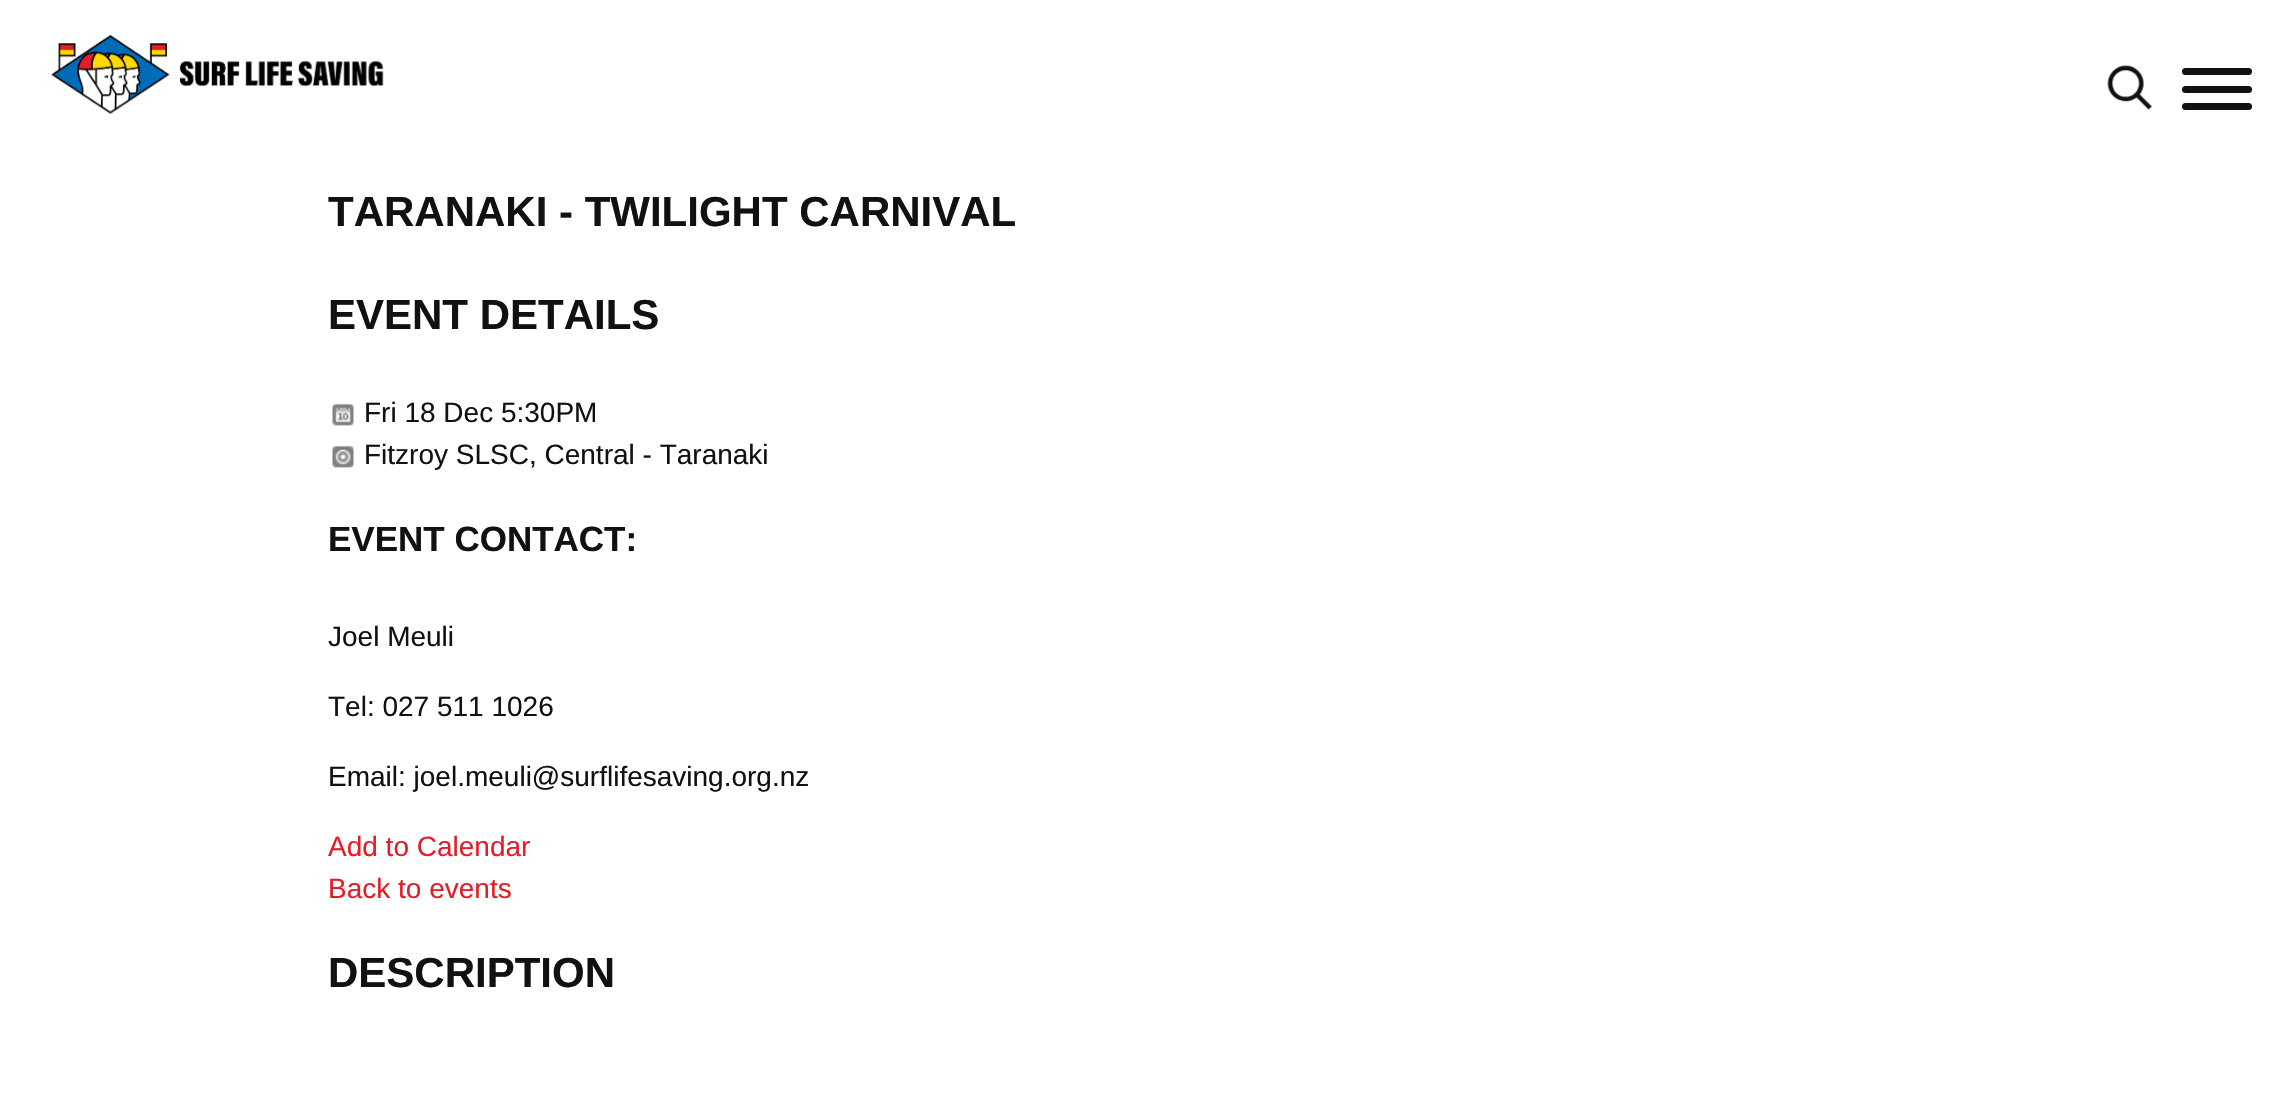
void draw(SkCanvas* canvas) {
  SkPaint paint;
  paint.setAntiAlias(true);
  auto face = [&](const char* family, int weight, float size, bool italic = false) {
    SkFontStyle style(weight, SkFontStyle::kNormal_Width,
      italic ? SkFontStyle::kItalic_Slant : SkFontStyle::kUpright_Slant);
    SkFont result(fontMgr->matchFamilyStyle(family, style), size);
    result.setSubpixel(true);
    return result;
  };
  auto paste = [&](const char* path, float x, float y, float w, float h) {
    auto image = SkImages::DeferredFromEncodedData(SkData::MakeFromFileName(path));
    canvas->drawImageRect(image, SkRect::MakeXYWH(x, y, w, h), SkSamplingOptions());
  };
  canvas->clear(0xffffffff);
  paste("img/1.png", 50, 35, 334, 79);
  paste("img/2.png", 2107, 65, 46, 45);
  paint.setColor(0xff111111);
  canvas->drawRoundRect(SkRect::MakeXYWH(2182, 86, 70, 7), 3.5f, 3.5f, paint);
  canvas->drawRoundRect(SkRect::MakeXYWH(2182, 68, 70, 7), 3.5f, 3.5f, paint);
  canvas->drawRoundRect(SkRect::MakeXYWH(2182, 103, 70, 7), 3.5f, 3.5f, paint);
  paste("img/3.png", 332, 403, 22, 23);
  paste("img/4.png", 332, 445, 22, 23);
  auto f0 = face("Liberation Sans", 700, 42);
  canvas->drawString("TARANAKI - TWILIGHT CARNIVAL", 328, 226, f0, paint);
  canvas->drawString("EVENT DETAILS", 328, 329, f0, paint);
  auto f1 = face("Liberation Sans", 400, 28);
  canvas->drawString("Fri 18 Dec 5:30PM", 364, 422, f1, paint);
  canvas->drawString("Fitzroy SLSC, Central - Taranaki", 364, 464, f1, paint);
  auto f2 = face("Liberation Sans", 700, 35);
  canvas->drawString("EVENT CONTACT:", 328, 551, f2, paint);
  {
    const struct { const char* s; float x, y; } items[] = {
      {"Joel Meuli", 328, 646},
      {"Tel: 027 511 1026", 328, 716},
      {"Email: joel.meuli@surflifesaving.org.nz", 328, 786},
    };
    for (auto [s, x, y] : items) {
      canvas->drawString(s, x, y, f1, paint);
    }
  }
  paint.setColor(0xffe21f27);
  canvas->drawString("Add to Calendar", 328, 856, f1, paint);
  canvas->drawString("Back to events", 328, 898, f1, paint);
  paint.setColor(0xff111111);
  canvas->drawString("DESCRIPTION", 328, 987, f0, paint);
}
